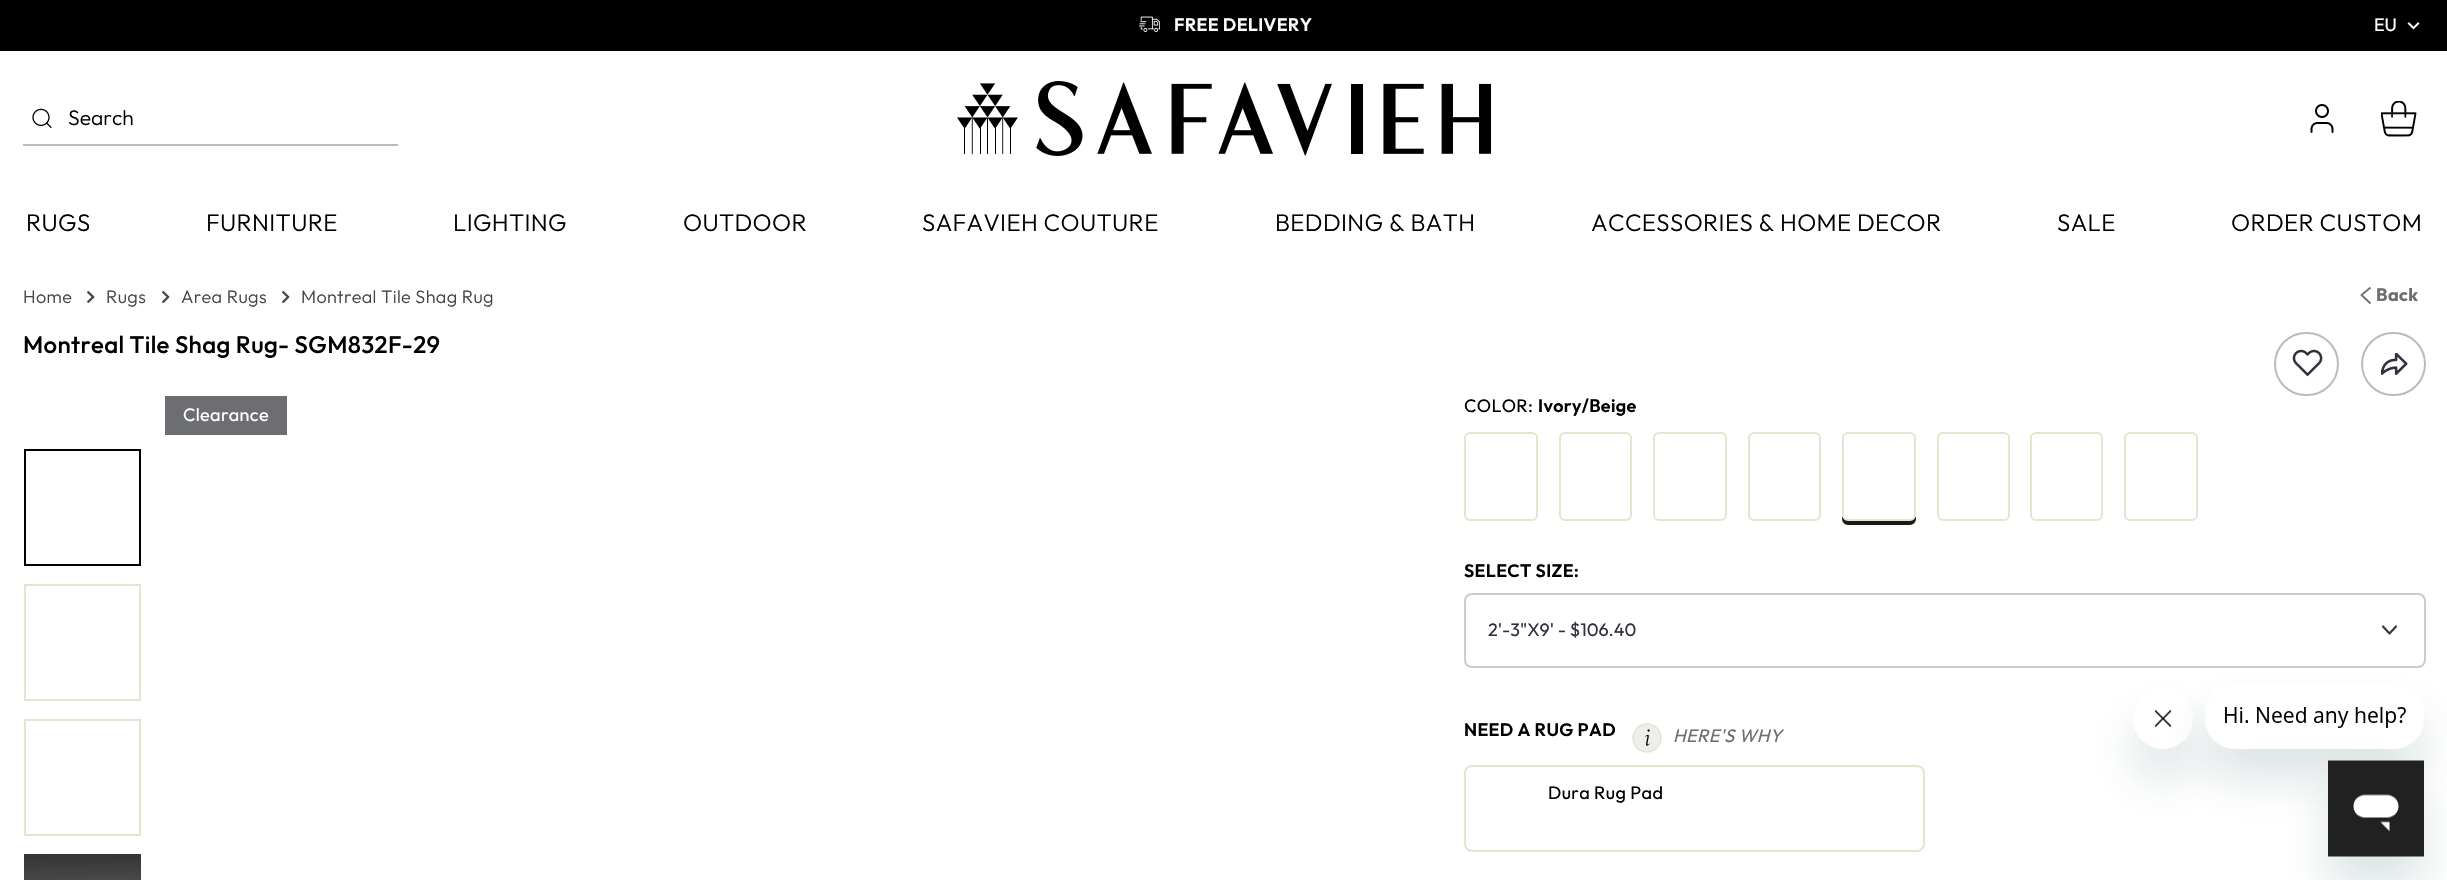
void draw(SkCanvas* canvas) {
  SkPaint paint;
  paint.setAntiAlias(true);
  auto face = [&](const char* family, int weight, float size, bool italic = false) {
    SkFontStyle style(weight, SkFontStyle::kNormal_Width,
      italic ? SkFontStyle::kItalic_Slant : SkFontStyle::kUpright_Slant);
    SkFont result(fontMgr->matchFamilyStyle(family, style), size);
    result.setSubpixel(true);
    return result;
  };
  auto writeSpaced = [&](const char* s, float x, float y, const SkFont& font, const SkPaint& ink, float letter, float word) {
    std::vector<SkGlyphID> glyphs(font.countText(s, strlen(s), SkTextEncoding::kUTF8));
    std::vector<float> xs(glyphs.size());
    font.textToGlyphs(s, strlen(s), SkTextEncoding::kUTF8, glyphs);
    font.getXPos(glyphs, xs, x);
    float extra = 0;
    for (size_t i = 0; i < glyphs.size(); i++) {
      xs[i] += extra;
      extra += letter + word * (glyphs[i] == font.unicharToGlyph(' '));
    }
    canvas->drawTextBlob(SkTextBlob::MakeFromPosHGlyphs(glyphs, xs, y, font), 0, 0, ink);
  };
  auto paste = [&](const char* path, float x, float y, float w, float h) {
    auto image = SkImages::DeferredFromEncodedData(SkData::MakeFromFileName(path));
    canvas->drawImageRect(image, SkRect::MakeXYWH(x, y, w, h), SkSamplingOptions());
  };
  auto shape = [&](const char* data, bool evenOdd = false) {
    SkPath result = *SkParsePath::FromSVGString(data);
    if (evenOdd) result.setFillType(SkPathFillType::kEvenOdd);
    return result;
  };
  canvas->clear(0xffffffff);
  paint.setColor(0xff000000);
  canvas->drawRect(SkRect::MakeXYWH(0, 0, 2447, 51), paint);
  paste("img/1.png", 1139, 16, 21, 16);
  paste("img/2.png", 2407, 22, 13, 8);
  paste("img/3.png", 32, 108, 20, 20);
  paint.setColor(0xffbcbcbc);
  canvas->drawRect(SkRect::MakeXYWH(23, 144, 375, 2), paint);
  paste("img/4.png", 957, 81, 534, 75);
  paste("img/5.png", 2310, 104, 24, 29);
  paste("img/6.png", 2381, 101, 36, 36);
  paint.setStroke(true);
  paint.setStrokeWidth(1.8f);
  paint.setColor(0xff6d6e71);
  canvas->drawPath(shape("M2370.5 287.5L2361.5 295L2370.5 303.5"), paint);
  paint.setStrokeWidth(2);
  paint.setColor(0xffbbbbbb);
  canvas->drawRoundRect(SkRect::MakeXYWH(2275, 333, 63, 62), 31, 31, paint);
  paste("img/7.png", 2292, 349, 31, 27);
  canvas->drawRoundRect(SkRect::MakeXYWH(2362, 333, 63, 62), 31, 31, paint);
  paste("img/8.png", 2381, 353, 27, 22);
  paint.setStroke(false);
  paint.setColor(0xff6d6e71);
  canvas->drawRect(SkRect::MakeXYWH(165, 396, 122, 39), paint);
  paint.setStroke(true);
  paint.setColor(0xff000000);
  canvas->drawRect(SkRect::MakeXYWH(25, 450, 115, 115), paint);
  paint.setColor(0xffe6e4cf);
  canvas->drawRect(SkRect::MakeXYWH(25, 585, 115, 115), paint);
  canvas->drawRect(SkRect::MakeXYWH(25, 720, 115, 115), paint);
  paint.setStroke(false);
  {
    const SkColor colors[] = {0xff333333, 0xff939598};
    const float stops[] = {0, 1};
    const SkPoint ends[] = {{82, 854}, {83, 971}};
    paint.setShader(SkGradientShader::MakeLinear(ends, colors, stops, 2, SkTileMode::kClamp));
    paint.setAlpha(255);
  }
  canvas->drawRect(SkRect::MakeXYWH(24, 854, 117, 26), paint);
  paint.setStroke(true);
  paint.setShader(nullptr);
  paint.setColor(0xffe6e4cf);
  canvas->drawRoundRect(SkRect::MakeXYWH(1465, 433, 72, 87), 5, 5, paint);
  canvas->drawRoundRect(SkRect::MakeXYWH(1560, 433, 71, 87), 5, 5, paint);
  canvas->drawRoundRect(SkRect::MakeXYWH(1654, 433, 72, 87), 5, 5, paint);
  canvas->drawRoundRect(SkRect::MakeXYWH(1749, 433, 71, 87), 5, 5, paint);
  paint.setStroke(false);
  paint.setColor(0xff1a1a1a);
  canvas->drawPath(shape("M1842 514V519C1842 522 1845 525 1848 525H1910C1913 525 1916 522 1916 519V443V441V514C1916 518 1913 520 1910 520H1848C1845 520 1842 518 1842 514Z"), paint);
  paint.setStroke(true);
  paint.setColor(0xffe6e4cf);
  canvas->drawRoundRect(SkRect::MakeXYWH(1843, 433, 72, 87), 5, 5, paint);
  canvas->drawRoundRect(SkRect::MakeXYWH(1938, 433, 71, 87), 5, 5, paint);
  canvas->drawRoundRect(SkRect::MakeXYWH(2031, 433, 71, 87), 5, 5, paint);
  canvas->drawRoundRect(SkRect::MakeXYWH(2125, 433, 72, 87), 5, 5, paint);
  paint.setStrokeWidth(2.2f);
  paint.setStrokeCap(SkPaint::kRound_Cap);
  paint.setStrokeJoin(SkPaint::kRound_Join);
  paint.setColor(0xff343a40);
  canvas->drawPath(shape("M2383 626.5L2389.5 633.5L2396 626.5"), paint);
  paint.setStrokeWidth(2);
  paint.setStrokeCap(SkPaint::kButt_Cap);
  paint.setStrokeJoin(SkPaint::kMiter_Join);
  paint.setColor(0xffcccccc);
  canvas->drawRoundRect(SkRect::MakeXYWH(1465, 594, 960, 73), 7, 7, paint);
  paste("img/9.png", 1632, 723, 30, 30);
  paint.setColor(0xffe6e4cf);
  canvas->drawRoundRect(SkRect::MakeXYWH(1465, 766, 459, 85), 7, 7, paint);
  paste("img/10.png", 87, 291, 8, 12);
  paste("img/10.png", 162, 291, 8, 12);
  paste("img/10.png", 282, 291, 8, 12);
  canvas->save();
  canvas->clipPath(shape("M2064 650H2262V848H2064ZM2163 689C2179.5 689 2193 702.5 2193 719C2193 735.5 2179.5 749 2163 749C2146.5 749 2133 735.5 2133 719C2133 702.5 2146.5 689 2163 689Z", true), true);
  paint.setStroke(false);
  paint.setColor(0x2617494d);
  paint.setMaskFilter(SkMaskFilter::MakeBlur(kNormal_SkBlurStyle, 22.5f));
  canvas->drawRoundRect(SkRect::MakeXYWH(2133, 719, 60, 60), 30, 30, paint);
  paint.setMaskFilter(nullptr);
  canvas->restore();
  paste("img/12.png", 2152, 709, 22, 40);
  canvas->save();
  canvas->clipPath(shape("M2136 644H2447V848H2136ZM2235 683H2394C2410.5 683 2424 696.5 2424 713V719C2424 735.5 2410.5 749 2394 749H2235C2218.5 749 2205 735.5 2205 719V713C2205 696.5 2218.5 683 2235 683Z", true), true);
  paint.setMaskFilter(SkMaskFilter::MakeBlur(kNormal_SkBlurStyle, 22.5f));
  canvas->drawRoundRect(SkRect::MakeXYWH(2205, 713, 219, 66), 30, 30, paint);
  paint.setMaskFilter(nullptr);
  canvas->restore();
  paste("img/11.png", 2206, 707, 200, 41);
  paint.setMaskFilter(SkMaskFilter::MakeBlur(kNormal_SkBlurStyle, 22.5f));
  canvas->drawRect(SkRect::MakeXYWH(2328, 791, 96, 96), paint);
  paint.setMaskFilter(nullptr);
  paste("img/13.png", 2328, 760, 96, 97);
  auto f0 = face("Outfit", 600, 18);
  paint.setColor(0xffffffff);
  writeSpaced("FREE DELIVERY", 1174, 31, f0, paint, 0.35f, 0);
  auto f1 = face("Outfit", 400, 18);
  canvas->drawString("EU", 2374, 31, f1, paint);
  auto f2 = face("Outfit", 300, 21);
  paint.setColor(0xff000000);
  canvas->drawString("Search", 68, 125, f2, paint);
  auto f3 = face("Outfit", 300, 24);
  {
    const struct { const char* s; float x, y; } items[] = {
      {"RUGS", 26, 231},
      {"FURNITURE", 206, 231},
      {"LIGHTING", 453, 231},
      {"OUTDOOR", 683, 231},
      {"SAFAVIEH COUTURE", 922, 231},
      {"BEDDING & BATH", 1275, 231},
      {"ACCESSORIES & HOME DECOR", 1591, 231},
      {"SALE", 2057, 231},
      {"ORDER CUSTOM", 2231, 231},
    };
    for (auto [s, x, y] : items) {
      writeSpaced(s, x, y, f3, paint, 0.35f, 0);
    }
  }
  auto f4 = face("Outfit", 700, 18);
  paint.setColor(0xff6d6e71);
  writeSpaced("Back", 2376, 301, f4, paint, 0.35f, 0);
  auto f5 = face("Outfit", 500, 24);
  paint.setColor(0xff000000);
  writeSpaced("Montreal Tile Shag Rug- SGM832F-29", 23, 353, f5, paint, 0.35f, 0);
  paint.setColor(0xffffffff);
  writeSpaced("Clearance", 183, 421, f1, paint, 0.35f, 0);
  paint.setColor(0xff000000);
  writeSpaced("COLOR:", 1464, 412, f1, paint, 0.35f, 0);
  writeSpaced("Ivory/Beige", 1538, 412, f0, paint, 0.35f, 0);
  writeSpaced("SELECT SIZE:", 1464, 577, f0, paint, 0.35f, 0);
  paint.setColor(0xff30303f);
  canvas->drawString("2'-3\"X9' - $106.40", 1488, 636, f1, paint);
  paint.setColor(0xff000000);
  writeSpaced("NEED A RUG PAD", 1464, 736, f0, paint, 0.35f, 0);
  auto f6 = face("Outfit", 400, 18, true);
  paint.setColor(0xff6d6e71);
  writeSpaced("HERE'S WHY", 1673, 742, f6, paint, 0.35f, 0);
  paint.setColor(0xff000000);
  writeSpaced("Dura Rug Pad", 1548, 799, f1, paint, 0.35f, 0);
  auto f7 = face("Outfit", 300, 18);
  paint.setColor(0xff444444);
  {
    const struct { const char* s; float x, y; } items[] = {
      {"Home", 23, 303},
      {"Rugs", 106, 303},
      {"Area Rugs", 181, 303},
      {"Montreal Tile Shag Rug", 301, 303},
    };
    for (auto [s, x, y] : items) {
      writeSpaced(s, x, y, f7, paint, 0.35f, 0);
    }
  }
}
